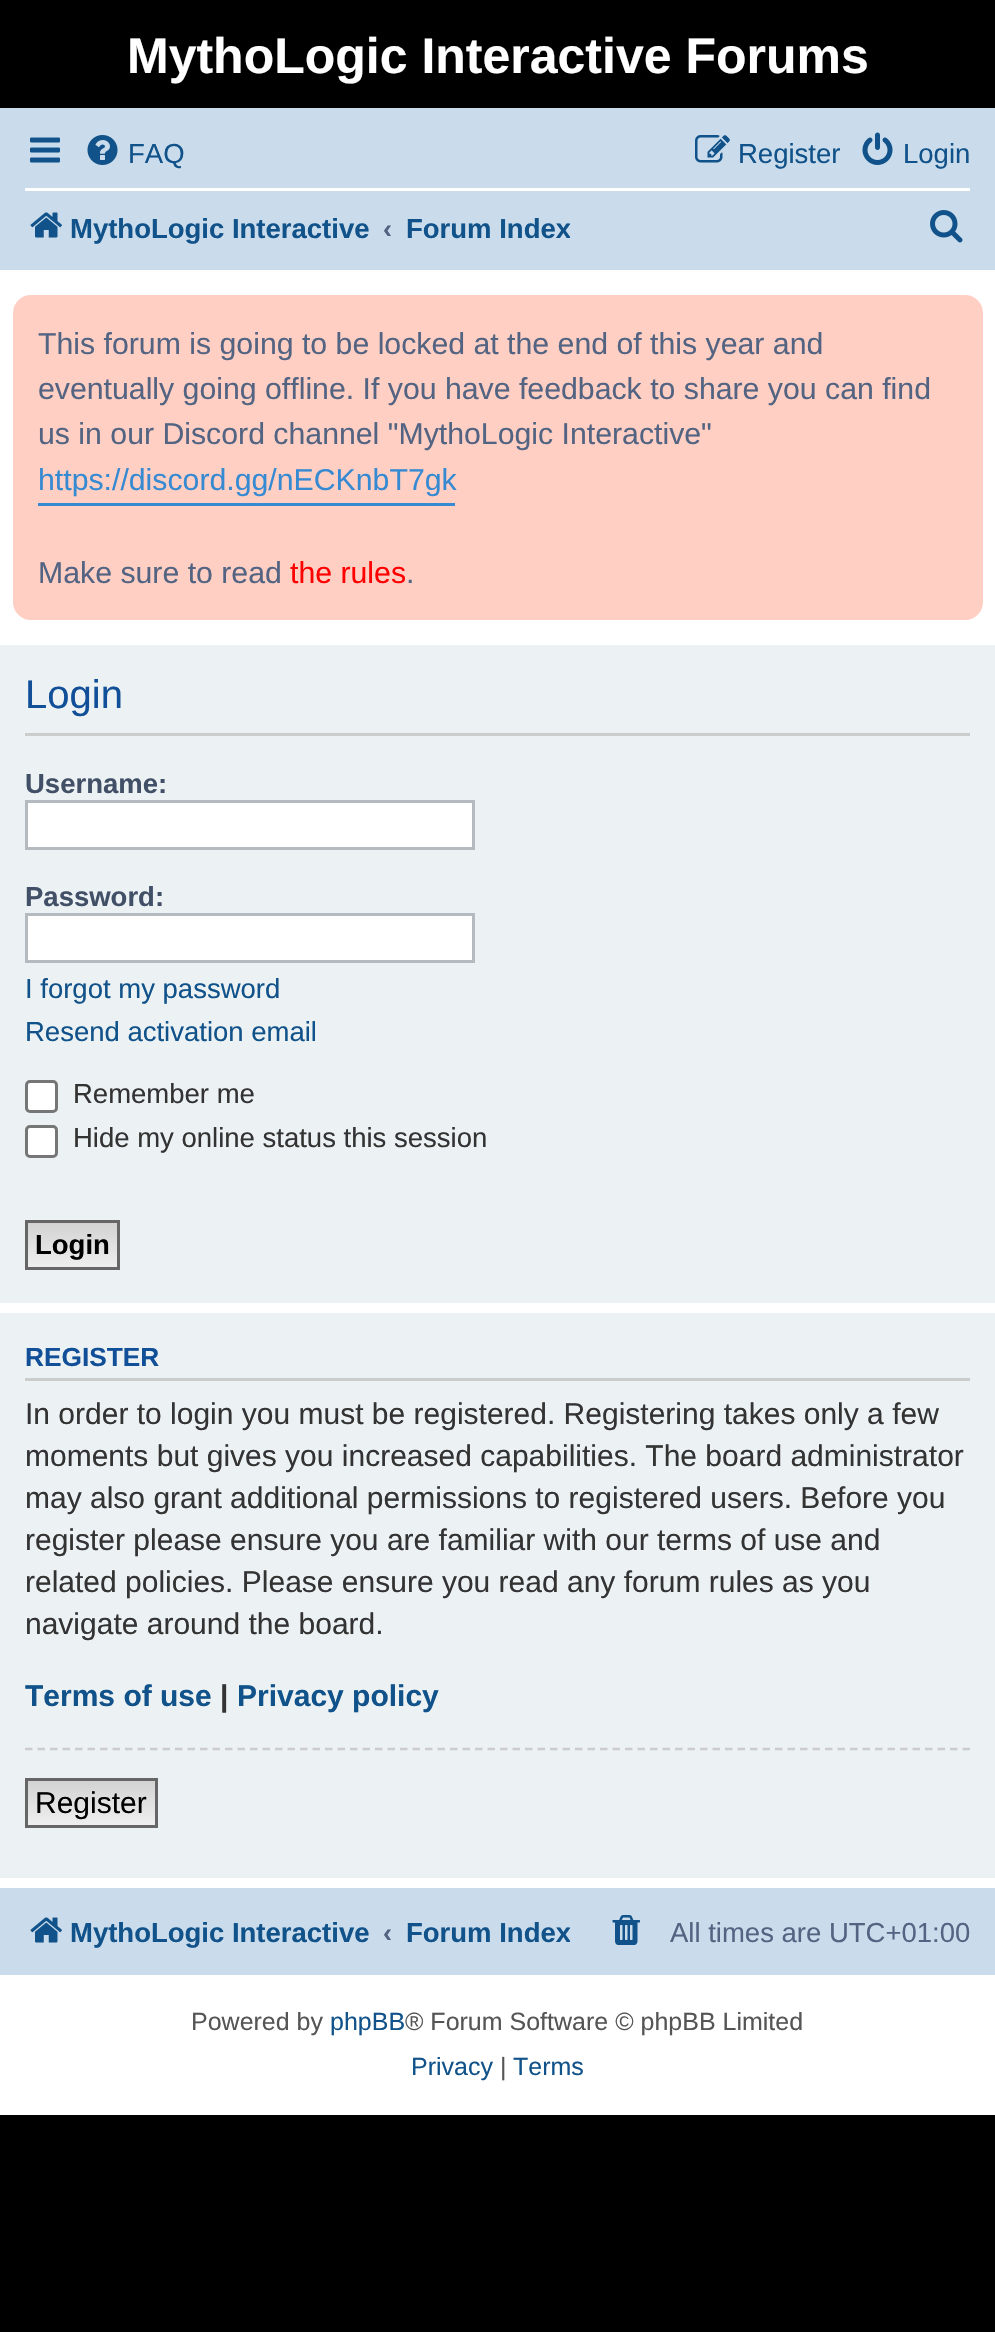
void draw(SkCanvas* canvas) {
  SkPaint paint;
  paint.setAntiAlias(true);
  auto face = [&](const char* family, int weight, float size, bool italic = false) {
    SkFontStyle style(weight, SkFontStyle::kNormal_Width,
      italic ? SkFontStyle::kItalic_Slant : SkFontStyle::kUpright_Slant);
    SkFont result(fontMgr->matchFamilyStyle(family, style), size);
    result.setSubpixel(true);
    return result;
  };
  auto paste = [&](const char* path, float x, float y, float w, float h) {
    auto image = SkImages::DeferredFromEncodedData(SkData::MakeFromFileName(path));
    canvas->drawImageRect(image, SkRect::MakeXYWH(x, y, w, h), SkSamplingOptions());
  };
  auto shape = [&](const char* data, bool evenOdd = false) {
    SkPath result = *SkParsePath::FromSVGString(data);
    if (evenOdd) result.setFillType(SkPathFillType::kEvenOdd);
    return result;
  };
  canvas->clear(0xff000000);
  paint.setColor(0xffffffff);
  canvas->drawRect(SkRect::MakeXYWH(0, 270, 995, 1845), paint);
  paint.setColor(0xffcadceb);
  canvas->drawRect(SkRect::MakeXYWH(0, 108, 995, 162), paint);
  paste("img/1.png", 30, 137, 30, 26);
  paste("img/2.png", 87, 135, 31, 30);
  paste("img/3.png", 695, 135, 35, 28);
  paste("img/4.png", 862, 132, 31, 33);
  paint.setColor(0xffffffff);
  canvas->drawRect(SkRect::MakeXYWH(25, 188, 945, 3), paint);
  paste("img/5.png", 30, 212, 32, 26);
  paste("img/6.png", 930, 210, 33, 33);
  paint.setColor(0xffffcfc4);
  canvas->drawRoundRect(SkRect::MakeXYWH(13, 295, 970, 325), 18, 18, paint);
  {
    const struct { float x, y, w, h; SkColor color; } items[] = {
      {38, 503, 417, 3, 0xff368ad2},
      {0, 645, 995, 658, 0xffecf1f3},
      {25, 733, 945, 3, 0xffcccccc},
    };
    for (auto [x, y, w, h, color] : items) {
      paint.setColor(color);
      canvas->drawRect(SkRect::MakeXYWH(x, y, w, h), paint);
    }
  }
  paint.setColor(0xffffffff);
  canvas->drawRect(SkRect::MakeXYWH(26.5f, 801.5f, 447, 47), paint);
  paint.setStroke(true);
  paint.setStrokeWidth(3);
  paint.setColor(0xffb4bac0);
  canvas->drawRect(SkRect::MakeXYWH(26.5f, 801.5f, 447, 47), paint);
  paint.setStroke(false);
  paint.setColor(0xffffffff);
  canvas->drawRect(SkRect::MakeXYWH(26.5f, 914.5f, 447, 47), paint);
  paint.setStroke(true);
  paint.setColor(0xffb4bac0);
  canvas->drawRect(SkRect::MakeXYWH(26.5f, 914.5f, 447, 47), paint);
  paint.setStroke(false);
  paint.setColor(0xffffffff);
  canvas->drawRoundRect(SkRect::MakeXYWH(26.5f, 1081.5f, 30, 30), 3.5f, 3.5f, paint);
  paint.setStroke(true);
  paint.setColor(0xff767676);
  canvas->drawRoundRect(SkRect::MakeXYWH(26.5f, 1081.5f, 30, 30), 3.5f, 3.5f, paint);
  paint.setStroke(false);
  paint.setColor(0xffffffff);
  canvas->drawRoundRect(SkRect::MakeXYWH(26.5f, 1126.5f, 30, 30), 3.5f, 3.5f, paint);
  paint.setStroke(true);
  paint.setColor(0xff767676);
  canvas->drawRoundRect(SkRect::MakeXYWH(26.5f, 1126.5f, 30, 30), 3.5f, 3.5f, paint);
  paint.setStroke(false);
  {
    const SkColor colors[] = {0xffd2d2d2, 0xffefefef};
    const float stops[] = {0, 1};
    const SkPoint ends[] = {{73, 1223}, {73, 1268}};
    paint.setShader(SkGradientShader::MakeLinear(ends, colors, stops, 2, SkTileMode::kClamp));
    paint.setAlpha(255);
  }
  canvas->drawRect(SkRect::MakeXYWH(28, 1223, 89, 44), paint);
  paint.setStroke(true);
  paint.setShader(nullptr);
  paint.setColor(0xff666666);
  canvas->drawRect(SkRect::MakeXYWH(26.5f, 1221.5f, 92, 47), paint);
  paint.setStroke(false);
  paint.setColor(0xffecf1f3);
  canvas->drawRect(SkRect::MakeXYWH(0, 1313, 995, 565), paint);
  paint.setColor(0xffcccccc);
  canvas->drawRect(SkRect::MakeXYWH(25, 1378, 945, 3), paint);
  paint.setStroke(true);
  paint.setStrokeWidth(2.5f);
  paint.setPathEffect(SkDashPathEffect::Make({{7.5f, 5}}, 0));
  canvas->drawPath(shape("M25 1749H970"), paint);
  paint.setPathEffect(nullptr);
  paint.setStroke(false);
  {
    const SkColor colors[] = {0xffd2d2d2, 0xffefefef};
    const float stops[] = {0, 1};
    const SkPoint ends[] = {{91, 1780}, {91, 1825}};
    paint.setShader(SkGradientShader::MakeLinear(ends, colors, stops, 2, SkTileMode::kClamp));
    paint.setAlpha(255);
  }
  canvas->drawRect(SkRect::MakeXYWH(28, 1781, 127, 44), paint);
  paint.setStroke(true);
  paint.setStrokeWidth(3);
  paint.setShader(nullptr);
  paint.setColor(0xff666666);
  canvas->drawRect(SkRect::MakeXYWH(26.5f, 1779.5f, 130, 47), paint);
  paint.setStroke(false);
  paint.setColor(0xffcadceb);
  canvas->drawRect(SkRect::MakeXYWH(0, 1888, 995, 87), paint);
  paste("img/5.png", 30, 1917, 32, 26);
  paste("img/7.png", 612, 1915, 28, 30);
  auto f0 = face("Liberation Sans", 700, 50);
  paint.setColor(0xffffffff);
  canvas->drawString("MythoLogic Interactive Forums", 127, 73, f0, paint);
  auto f1 = face("Liberation Sans", 400, 27.5f);
  paint.setColor(0xff105289);
  {
    const struct { const char* s; float x, y; } items[] = {
      {"FAQ", 128, 163},
      {"Register", 738, 163},
      {"Login", 903, 163},
    };
    for (auto [s, x, y] : items) {
      canvas->drawString(s, x, y, f1, paint);
    }
  }
  auto f2 = face("Liberation Sans", 700, 27.5f);
  canvas->drawString("MythoLogic Interactive", 70, 238, f2, paint);
  paint.setColor(0xff536482);
  canvas->drawString("‹", 383, 238, f2, paint);
  canvas->save();
  canvas->clipRect(SkRect::MakeXYWH(405, 198, 165, 60));
  paint.setColor(0xff105289);
  canvas->drawString("Forum Index", 406, 238, f2, paint);
  canvas->restore();
  auto f3 = face("Liberation Sans", 400, 30.25f);
  paint.setColor(0xff536482);
  {
    const struct { const char* s; float x, y; } items[] = {
      {"This forum is going to be locked at the end of this year and", 38, 354},
      {"eventually going offline. If you have feedback to share you can find", 38, 399},
      {"us in our Discord channel \"MythoLogic Interactive\"", 38, 444},
    };
    for (auto [s, x, y] : items) {
      canvas->drawString(s, x, y, f3, paint);
    }
  }
  paint.setColor(0xff368ad2);
  canvas->drawString("https://discord.gg/nECKnbT7gk", 38, 490, f3, paint);
  paint.setColor(0xff536482);
  canvas->drawString("Make sure to read", 38, 583, f3, paint);
  paint.setColor(0xffff0000);
  canvas->drawString("the rules", 290, 583, f3, paint);
  paint.setColor(0xff536482);
  canvas->drawString(".", 406, 583, f3, paint);
  auto f4 = face("Liberation Sans", 400, 40);
  paint.setColor(0xff115098);
  canvas->drawString("Login", 25, 708, f4, paint);
  paint.setColor(0xff425067);
  canvas->drawString("Username:", 25, 793, f2, paint);
  canvas->drawString("Password:", 25, 906, f2, paint);
  paint.setColor(0xff105289);
  canvas->drawString("I forgot my password", 25, 998, f1, paint);
  canvas->drawString("Resend activation email", 25, 1041, f1, paint);
  paint.setColor(0xff333333);
  canvas->drawString("Remember me", 73, 1103, f1, paint);
  canvas->drawString("Hide my online status this session", 73, 1147, f1, paint);
  paint.setColor(0xff000000);
  canvas->drawString("Login", 35, 1254, f2, paint);
  auto f5 = face("Liberation Sans", 700, 26.25f);
  paint.setColor(0xff115098);
  canvas->drawString("REGISTER", 25, 1366, f5, paint);
  auto f6 = face("Liberation Sans", 400, 30);
  paint.setColor(0xff333333);
  {
    const struct { const char* s; float x, y; } items[] = {
      {"In order to login you must be registered. Registering takes only a few", 25, 1424},
      {"moments but gives you increased capabilities. The board administrator", 25, 1466},
      {"may also grant additional permissions to registered users. Before you", 25, 1508},
      {"register please ensure you are familiar with our terms of use and", 25, 1550},
      {"related policies. Please ensure you read any forum rules as you", 25, 1592},
      {"navigate around the board.", 25, 1634},
    };
    for (auto [s, x, y] : items) {
      canvas->drawString(s, x, y, f6, paint);
    }
  }
  auto f7 = face("Liberation Sans", 700, 30);
  paint.setColor(0xff105289);
  canvas->drawString("Terms of use", 25, 1706, f7, paint);
  paint.setColor(0xff333333);
  canvas->drawString("|", 220, 1706, f7, paint);
  paint.setColor(0xff105289);
  canvas->drawString("Privacy policy", 237, 1706, f7, paint);
  paint.setColor(0xff000000);
  canvas->drawString("Register", 35, 1813, f6, paint);
  paint.setColor(0xff105289);
  canvas->drawString("MythoLogic Interactive", 70, 1942, f2, paint);
  paint.setColor(0xff536482);
  canvas->drawString("‹", 383, 1942, f2, paint);
  canvas->save();
  canvas->clipRect(SkRect::MakeXYWH(405, 1903, 165, 60));
  paint.setColor(0xff105289);
  canvas->drawString("Forum Index", 406, 1942, f2, paint);
  canvas->restore();
  paint.setColor(0xff536482);
  canvas->drawString("All times are UTC+01:00", 670, 1942, f1, paint);
  auto f8 = face("Liberation Sans", 400, 25);
  paint.setColor(0xff555555);
  canvas->drawString("Powered by", 191, 2030, f8, paint);
  paint.setColor(0xff105289);
  canvas->drawString("phpBB", 330, 2030, f8, paint);
  paint.setColor(0xff555555);
  canvas->drawString("® Forum Software © phpBB Limited", 405, 2030, f8, paint);
  paint.setColor(0xff105289);
  canvas->drawString("Privacy", 411, 2075, f8, paint);
  paint.setColor(0xff555555);
  canvas->drawString("|", 500, 2075, f8, paint);
  paint.setColor(0xff105289);
  canvas->drawString("Terms", 513, 2075, f8, paint);
}
